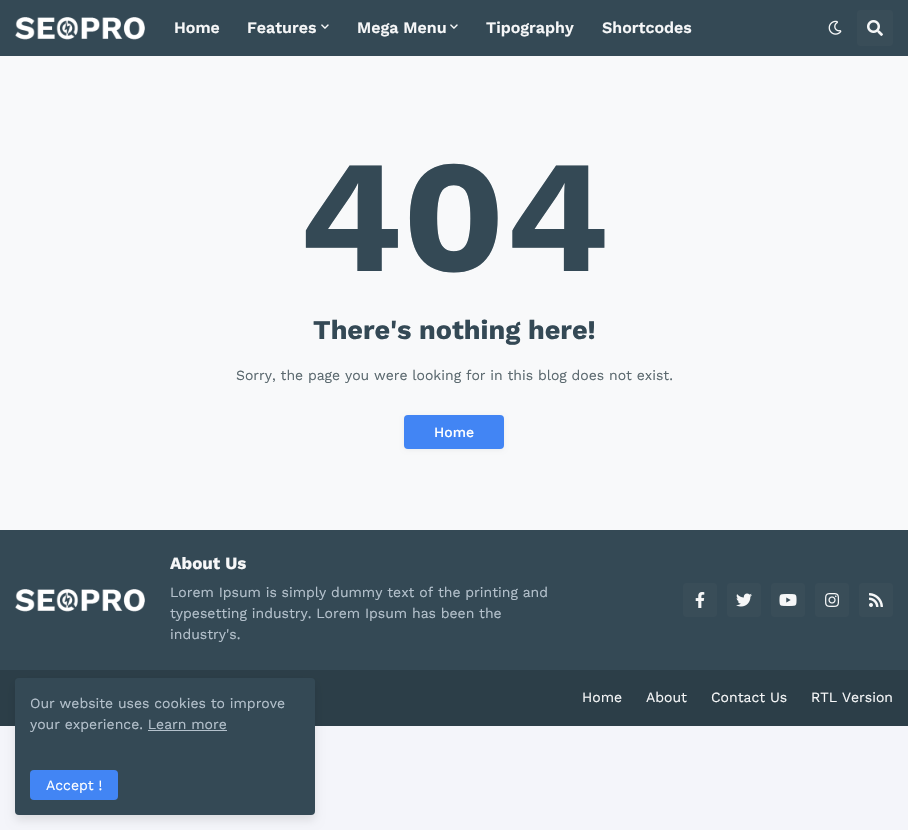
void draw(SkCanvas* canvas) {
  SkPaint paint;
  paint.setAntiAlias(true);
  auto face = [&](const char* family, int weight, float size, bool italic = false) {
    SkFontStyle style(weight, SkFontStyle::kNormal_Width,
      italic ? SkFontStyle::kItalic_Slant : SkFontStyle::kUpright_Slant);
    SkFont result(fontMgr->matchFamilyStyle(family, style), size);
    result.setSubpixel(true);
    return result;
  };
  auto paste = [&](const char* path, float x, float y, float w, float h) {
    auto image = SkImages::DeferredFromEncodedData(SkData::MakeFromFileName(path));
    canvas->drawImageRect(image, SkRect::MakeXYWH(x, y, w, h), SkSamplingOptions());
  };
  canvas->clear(0xfff4f5fa);
  paint.setColor(0xfff8f9fa);
  canvas->drawRect(SkRect::MakeXYWH(0, 56, 908, 474), paint);
  paint.setColor(0xff344955);
  canvas->drawRect(SkRect::MakeXYWH(0, 0, 908, 56), paint);
  paste("img/1.png", 15, 17, 130, 23);
  paste("img/2.png", 321, 24, 8, 5);
  paste("img/2.png", 450, 24, 8, 5);
  paste("img/3.png", 828, 20, 14, 15);
  paint.setColor(0xff394d58);
  canvas->drawRoundRect(SkRect::MakeXYWH(857, 10, 36, 36), 4, 4, paint);
  paste("img/4.png", 867, 20, 16, 16);
  paint.setColor(0x0d000000);
  paint.setMaskFilter(SkMaskFilter::MakeBlur(kNormal_SkBlurStyle, 2));
  canvas->drawRoundRect(SkRect::MakeXYWH(404, 416, 100, 34), 4, 4, paint);
  paint.setMaskFilter(nullptr);
  paint.setColor(0xff4285f4);
  canvas->drawRoundRect(SkRect::MakeXYWH(404, 415, 100, 34), 4, 4, paint);
  paint.setColor(0xff344955);
  canvas->drawRect(SkRect::MakeXYWH(0, 530, 908, 140), paint);
  paste("img/1.png", 15, 589, 130, 23);
  paint.setColor(0xff394d58);
  canvas->drawRoundRect(SkRect::MakeXYWH(683, 583, 34, 34), 4, 4, paint);
  paste("img/5.png", 695, 592, 10, 16);
  canvas->drawRoundRect(SkRect::MakeXYWH(727, 583, 34, 34), 4, 4, paint);
  paste("img/6.png", 736, 593, 16, 14);
  canvas->drawRoundRect(SkRect::MakeXYWH(771, 583, 34, 34), 4, 4, paint);
  paste("img/7.png", 779, 594, 18, 12);
  canvas->drawRoundRect(SkRect::MakeXYWH(815, 583, 34, 34), 4, 4, paint);
  paste("img/8.png", 825, 593, 15, 14);
  canvas->drawRoundRect(SkRect::MakeXYWH(859, 583, 34, 34), 4, 4, paint);
  paste("img/9.png", 869, 593, 14, 14);
  paint.setColor(0xff2c3e48);
  canvas->drawRect(SkRect::MakeXYWH(0, 670, 908, 56), paint);
  paint.setColor(0x1a000000);
  paint.setMaskFilter(SkMaskFilter::MakeBlur(kNormal_SkBlurStyle, 5));
  canvas->drawRoundRect(SkRect::MakeXYWH(15, 683, 300, 137), 4, 4, paint);
  paint.setMaskFilter(nullptr);
  paint.setColor(0xff344955);
  canvas->drawRoundRect(SkRect::MakeXYWH(15, 678, 300, 137), 4, 4, paint);
  paint.setColor(0xffb4c1cc);
  canvas->drawRect(SkRect::MakeXYWH(148, 730, 79, 1), paint);
  paint.setColor(0xff4285f4);
  canvas->drawRoundRect(SkRect::MakeXYWH(30, 770, 88, 30), 4, 4, paint);
  auto f0 = face("Work Sans", 600, 16);
  paint.setColor(0xfff6f7f8);
  {
    const struct { const char* s; float x, y; } items[] = {
      {"Home", 174, 33},
      {"Features", 247, 33},
      {"Mega Menu", 357, 33},
      {"Tipography", 486, 33},
      {"Shortcodes", 602, 33},
    };
    for (auto [s, x, y] : items) {
      canvas->drawString(s, x, y, f0, paint);
    }
  }
  auto f1 = face("Work Sans", 700, 160);
  paint.setColor(0xff344955);
  canvas->drawString("404", 299, 271, f1, paint);
  auto f2 = face("Work Sans", 700, 27);
  canvas->drawString("There's nothing here!", 313, 339, f2, paint);
  auto f3 = face("Work Sans", 400, 14);
  paint.setColor(0xff5b696f);
  canvas->drawString("Sorry, the page you were looking for in this blog does not exist.", 236, 380, f3, paint);
  auto f4 = face("Work Sans", 500, 14);
  paint.setColor(0xffffffff);
  canvas->drawString("Home", 434, 437, f4, paint);
  auto f5 = face("Work Sans", 700, 17);
  paint.setColor(0xfff6f7f8);
  canvas->drawString("About Us", 170, 569, f5, paint);
  paint.setColor(0xffb4c1cc);
  {
    const struct { const char* s; float x, y; } items[] = {
      {"Lorem Ipsum is simply dummy text of the printing and", 170, 597},
      {"typesetting industry. Lorem Ipsum has been the", 170, 618},
      {"industry's.", 170, 639},
    };
    for (auto [s, x, y] : items) {
      canvas->drawString(s, x, y, f3, paint);
    }
  }
  paint.setColor(0xfff6f7f8);
  {
    const struct { const char* s; float x, y; } items[] = {
      {"Home", 582, 702},
      {"About", 646, 702},
      {"Contact Us", 711, 702},
      {"RTL Version", 811, 702},
    };
    for (auto [s, x, y] : items) {
      canvas->drawString(s, x, y, f3, paint);
    }
  }
  paint.setColor(0xffb4c1cc);
  canvas->drawString("Our website uses cookies to improve", 30, 708, f3, paint);
  canvas->drawString("your experience. Learn more", 30, 729, f3, paint);
  paint.setColor(0xffffffff);
  canvas->drawString("Accept !", 46, 790, f3, paint);
}
